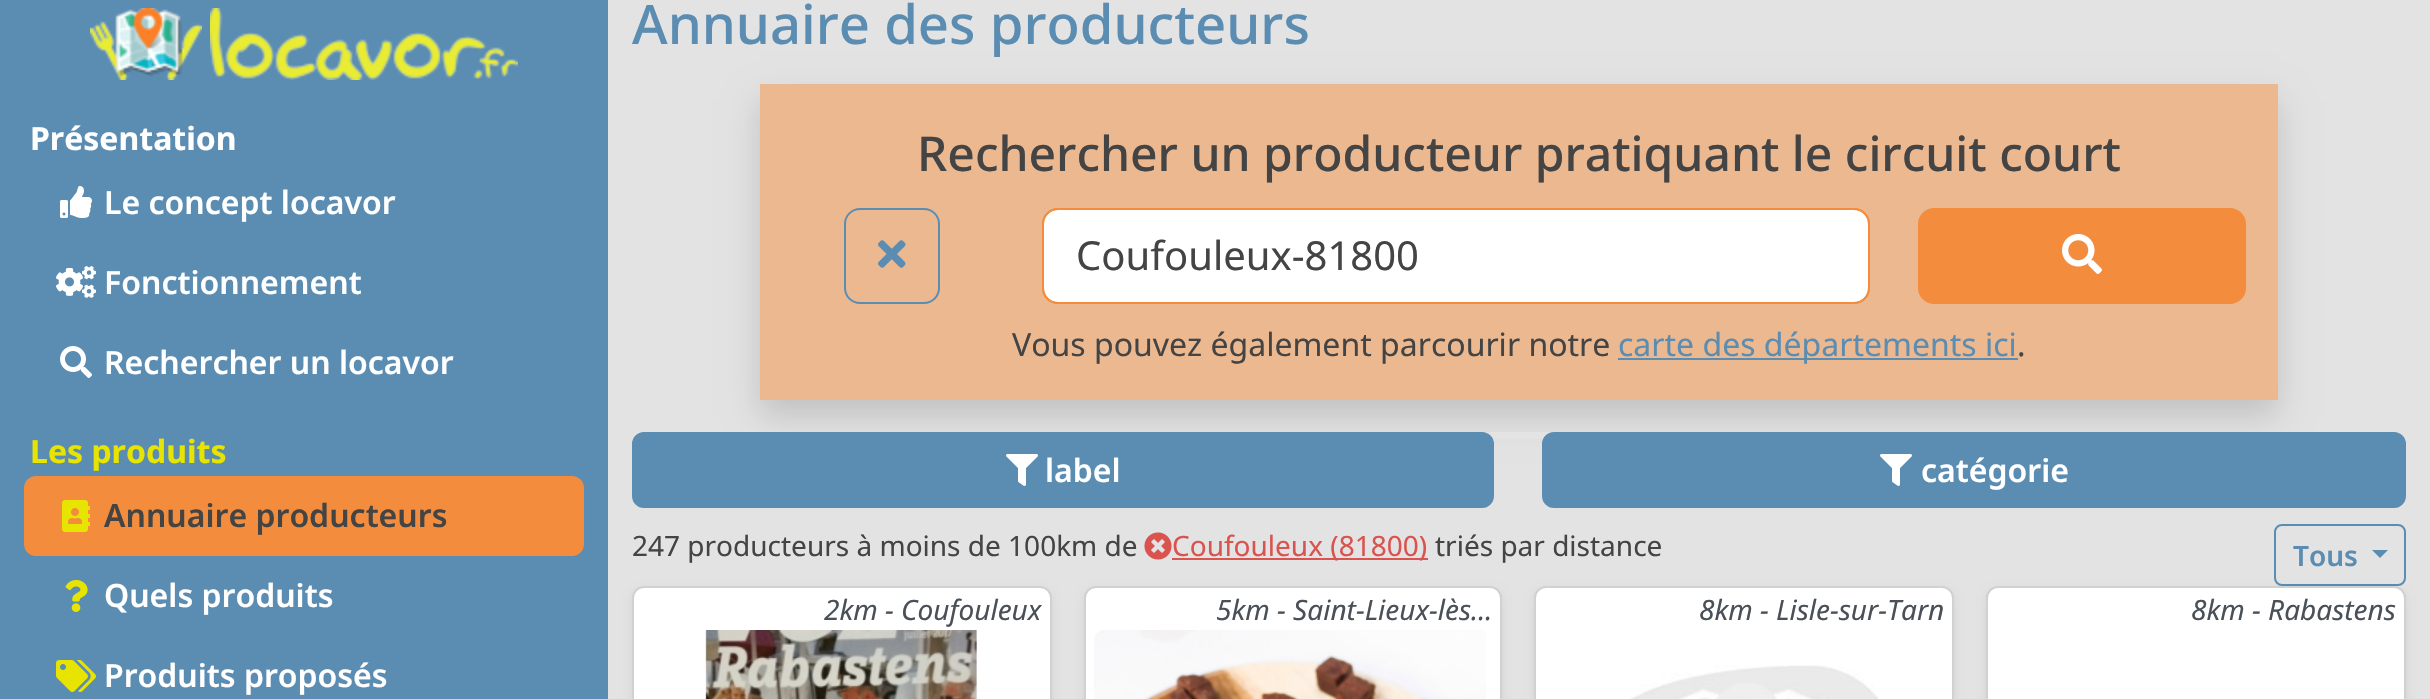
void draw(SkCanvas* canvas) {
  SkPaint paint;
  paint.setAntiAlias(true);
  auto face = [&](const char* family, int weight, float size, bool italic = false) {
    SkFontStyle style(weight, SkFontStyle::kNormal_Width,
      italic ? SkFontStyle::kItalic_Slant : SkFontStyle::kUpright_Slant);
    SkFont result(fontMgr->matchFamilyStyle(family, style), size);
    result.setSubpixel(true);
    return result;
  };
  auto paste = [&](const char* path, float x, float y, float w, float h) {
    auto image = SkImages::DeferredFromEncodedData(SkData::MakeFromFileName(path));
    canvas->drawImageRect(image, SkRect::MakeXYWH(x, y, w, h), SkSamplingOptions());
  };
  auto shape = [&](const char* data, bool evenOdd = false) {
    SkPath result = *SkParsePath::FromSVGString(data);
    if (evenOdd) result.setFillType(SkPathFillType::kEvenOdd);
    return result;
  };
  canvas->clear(0xffe3e3e3);
  paint.setColor(0xff5b8cb1);
  canvas->drawRect(SkRect::MakeXYWH(0, 0, 608, 699), paint);
  paste("img/1.png", 90, 8, 112, 72);
  paste("img/2.png", 210, 8, 308, 72);
  paste("img/3.png", 60, 186, 32, 32);
  paste("img/4.png", 56, 266, 40, 32);
  paste("img/5.png", 60, 346, 32, 32);
  paint.setColor(0xfff38d3d);
  canvas->drawRoundRect(SkRect::MakeXYWH(24, 476, 560, 80), 12, 12, paint);
  paste("img/6.png", 62, 500, 28, 32);
  paste("img/7.png", 65, 580, 23, 32);
  paste("img/8.png", 56, 660, 40, 32);
  paint.setColor(0x26000000);
  paint.setMaskFilter(SkMaskFilter::MakeBlur(kNormal_SkBlurStyle, 16));
  canvas->drawRect(SkRect::MakeXYWH(760, 100, 1518, 316), paint);
  paint.setMaskFilter(nullptr);
  paint.setColor(0xffebb890);
  canvas->drawRect(SkRect::MakeXYWH(760, 84, 1518, 316), paint);
  paint.setStroke(true);
  paint.setStrokeWidth(2);
  paint.setColor(0xff5b8cb1);
  canvas->drawRoundRect(SkRect::MakeXYWH(845, 209, 94, 94), 15, 15, paint);
  paste("img/9.png", 878, 240, 28, 28);
  paint.setStroke(false);
  paint.setColor(0xffffffff);
  canvas->drawRoundRect(SkRect::MakeXYWH(1043, 209, 826, 94), 15, 15, paint);
  paint.setStroke(true);
  paint.setColor(0xfff38d3d);
  canvas->drawRoundRect(SkRect::MakeXYWH(1043, 209, 826, 94), 15, 15, paint);
  canvas->drawRoundRect(SkRect::MakeXYWH(1043, 209, 826, 94), 15, 15, paint);
  paint.setStroke(false);
  canvas->drawRoundRect(SkRect::MakeXYWH(1919, 209, 326, 94), 15, 15, paint);
  paint.setStroke(true);
  canvas->drawRoundRect(SkRect::MakeXYWH(1919, 209, 326, 94), 15, 15, paint);
  paste("img/10.png", 2062, 234, 40, 40);
  paint.setStroke(false);
  paint.setColor(0xff5b8cb1);
  canvas->drawRect(SkRect::MakeXYWH(1618, 358, 400, 2), paint);
  paint.setColor(0xffe3e3e3);
  canvas->drawRect(SkRect::MakeXYWH(760, 432, 1518, 7), paint);
  paint.setColor(0xff5b8cb1);
  canvas->drawRoundRect(SkRect::MakeXYWH(633, 433, 860, 74), 11, 11, paint);
  paint.setStroke(true);
  canvas->drawRoundRect(SkRect::MakeXYWH(633, 433, 860, 74), 11, 11, paint);
  paste("img/11.png", 1006, 454, 32, 32);
  paint.setStroke(false);
  canvas->drawRoundRect(SkRect::MakeXYWH(1543, 433, 862, 74), 11, 11, paint);
  paint.setStroke(true);
  canvas->drawRoundRect(SkRect::MakeXYWH(1543, 433, 862, 74), 11, 11, paint);
  paste("img/11.png", 1880, 454, 32, 32);
  paste("img/12.png", 1144, 532, 28, 28);
  paint.setStroke(false);
  paint.setColor(0xffd9534f);
  canvas->drawRect(SkRect::MakeXYWH(1172, 558, 256, 2), paint);
  paint.setStroke(true);
  paint.setColor(0xff5b8cb1);
  canvas->drawRoundRect(SkRect::MakeXYWH(2275, 525, 130, 60), 7, 7, paint);
  paint.setStroke(false);
  canvas->drawPath(shape("M2372 550H2388L2380 558Z"), paint);
  paint.setColor(0x12000000);
  paint.setMaskFilter(SkMaskFilter::MakeBlur(kNormal_SkBlurStyle, 4));
  canvas->drawRoundRect(SkRect::MakeXYWH(632, 590, 420, 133), 12, 12, paint);
  paint.setMaskFilter(nullptr);
  paint.setColor(0xffffffff);
  canvas->drawRoundRect(SkRect::MakeXYWH(632, 586, 420, 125), 12, 12, paint);
  paint.setStroke(true);
  paint.setColor(0x2e000000);
  canvas->drawRoundRect(SkRect::MakeXYWH(633, 587, 418, 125), 11, 11, paint);
  paste("img/13.png", 705, 630, 273, 69);
  paint.setStroke(false);
  paint.setColor(0x12000000);
  paint.setMaskFilter(SkMaskFilter::MakeBlur(kNormal_SkBlurStyle, 4));
  canvas->drawRoundRect(SkRect::MakeXYWH(1084, 590, 418, 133), 12, 12, paint);
  paint.setMaskFilter(nullptr);
  paint.setColor(0xffffffff);
  canvas->drawRoundRect(SkRect::MakeXYWH(1084, 586, 418, 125), 12, 12, paint);
  paint.setStroke(true);
  paint.setColor(0x2e000000);
  canvas->drawRoundRect(SkRect::MakeXYWH(1085, 587, 416, 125), 11, 11, paint);
  paste("img/14.png", 1094, 630, 392, 69);
  paint.setStroke(false);
  paint.setColor(0x12000000);
  paint.setMaskFilter(SkMaskFilter::MakeBlur(kNormal_SkBlurStyle, 4));
  canvas->drawRoundRect(SkRect::MakeXYWH(1534, 590, 420, 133), 12, 12, paint);
  paint.setMaskFilter(nullptr);
  paint.setColor(0xffffffff);
  canvas->drawRoundRect(SkRect::MakeXYWH(1534, 586, 420, 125), 12, 12, paint);
  paint.setStroke(true);
  paint.setColor(0x2e000000);
  canvas->drawRoundRect(SkRect::MakeXYWH(1535, 587, 418, 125), 11, 11, paint);
  paste("img/15.png", 1630, 665, 249, 34);
  paint.setStroke(false);
  paint.setColor(0x12000000);
  paint.setMaskFilter(SkMaskFilter::MakeBlur(kNormal_SkBlurStyle, 4));
  canvas->drawRoundRect(SkRect::MakeXYWH(1986, 590, 420, 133), 12, 12, paint);
  paint.setMaskFilter(nullptr);
  paint.setColor(0xffffffff);
  canvas->drawRoundRect(SkRect::MakeXYWH(1986, 586, 420, 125), 12, 12, paint);
  paint.setStroke(true);
  paint.setColor(0x2e000000);
  canvas->drawRoundRect(SkRect::MakeXYWH(1987, 587, 418, 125), 11, 11, paint);
  auto f0 = face("Noto Sans", 700, 32);
  paint.setStroke(false);
  paint.setColor(0xffffffff);
  canvas->drawString("Présentation", 30, 150, f0, paint);
  auto f1 = face("Noto Sans", 600, 32);
  {
    const struct { const char* s; float x, y; } items[] = {
      {"Le concept locavor", 104, 214},
      {"Fonctionnement", 104, 294},
      {"Rechercher un locavor", 104, 374},
    };
    for (auto [s, x, y] : items) {
      canvas->drawString(s, x, y, f1, paint);
    }
  }
  paint.setColor(0xffe6e400);
  canvas->drawString("Les produits", 30, 463, f0, paint);
  paint.setColor(0xff444444);
  canvas->drawString("Annuaire producteurs", 104, 527, f1, paint);
  paint.setColor(0xffffffff);
  canvas->drawString("Quels produits", 104, 607, f1, paint);
  canvas->drawString("Produits proposés", 104, 687, f1, paint);
  auto f2 = face("Noto Sans", 500, 54.4f);
  paint.setColor(0xff5b8cb1);
  canvas->drawString("Annuaire des producteurs", 632, 44, f2, paint);
  auto f3 = face("Noto Sans", 500, 48);
  paint.setColor(0xff444444);
  canvas->drawString("Rechercher un producteur pratiquant le circuit court", 917, 171, f3, paint);
  auto f4 = face("Noto Sans", 400, 40);
  canvas->drawString("Coufouleux-81800", 1076, 270, f4, paint);
  auto f5 = face("Noto Sans", 400, 32);
  canvas->drawString("Vous pouvez également parcourir notre", 1012, 356, f5, paint);
  paint.setColor(0xff5b8cb1);
  canvas->drawString("carte des départements ici", 1618, 356, f5, paint);
  paint.setColor(0xff444444);
  canvas->drawString(".", 2017, 356, f5, paint);
  paint.setColor(0xffffffff);
  canvas->drawString("label", 1045, 482, f1, paint);
  canvas->drawString("catégorie", 1921, 482, f1, paint);
  auto f6 = face("Noto Sans", 400, 28);
  paint.setColor(0xff444444);
  canvas->drawString("247 producteurs à moins de 100km de", 632, 556, f6, paint);
  paint.setColor(0xffd9534f);
  canvas->drawString("Coufouleux (81800)", 1172, 556, f6, paint);
  paint.setColor(0xff444444);
  canvas->drawString("triés par distance", 1435, 556, f6, paint);
  auto f7 = face("Noto Sans", 600, 28);
  paint.setColor(0xff5b8cb1);
  canvas->drawString("Tous", 2293, 566, f7, paint);
  auto f8 = face("Noto Sans", 400, 28, true);
  paint.setColor(0xff495057);
  {
    const struct { const char* s; float x, y; } items[] = {
      {"2km - Coufouleux", 824, 620},
      {"5km - Saint-Lieux-lès...", 1216, 620},
      {"8km - Lisle-sur-Tarn", 1699, 620},
      {"8km - Rabastens", 2191, 620},
    };
    for (auto [s, x, y] : items) {
      canvas->drawString(s, x, y, f8, paint);
    }
  }
}
